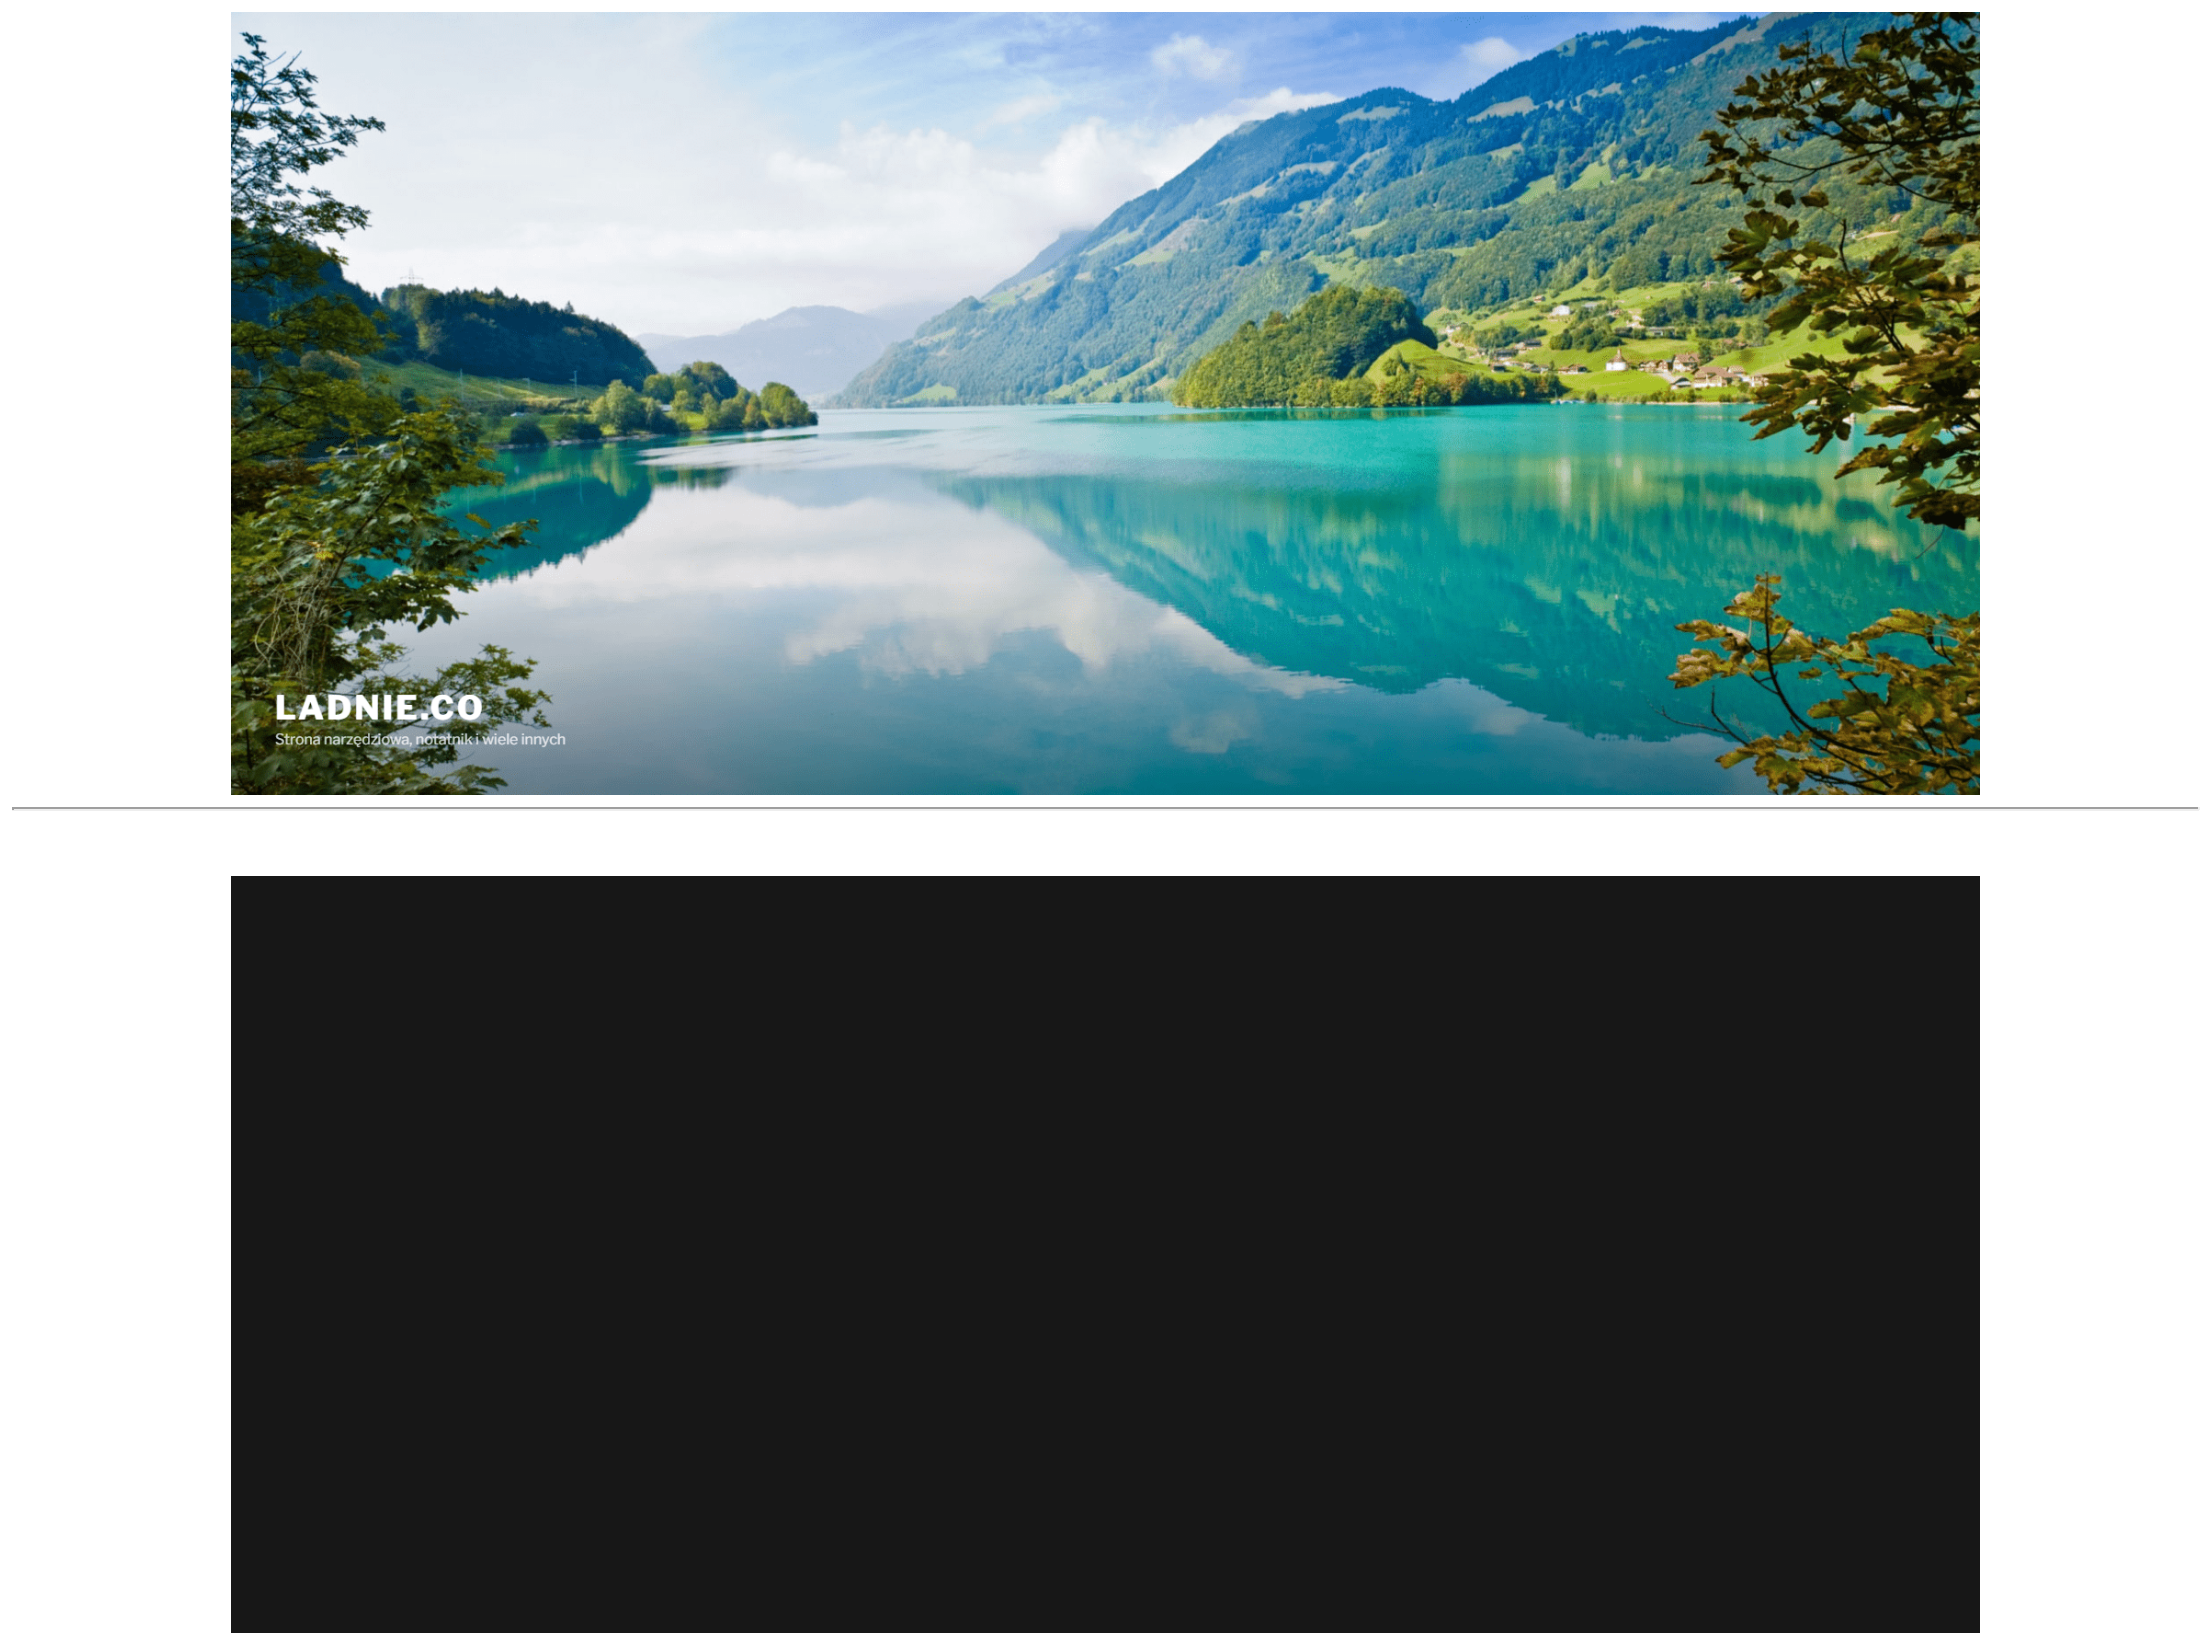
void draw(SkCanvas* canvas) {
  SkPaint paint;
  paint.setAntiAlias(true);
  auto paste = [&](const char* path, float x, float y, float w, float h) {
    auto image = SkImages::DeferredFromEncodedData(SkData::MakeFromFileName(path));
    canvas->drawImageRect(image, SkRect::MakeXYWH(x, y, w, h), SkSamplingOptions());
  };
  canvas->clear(0xffffffff);
  paste("img/1.png", 231, 12, 1749, 783);
  {
    const struct { float x, y, w, h; SkColor color; } items[] = {
      {12, 807, 2187, 2, 0xff9f9f9f},
      {2198, 807, 2, 3, 0xffeeeeee},
      {12, 809, 2187, 2, 0xffeeeeee},
      {12, 807, 2, 3, 0xff9f9f9f},
      {231, 876, 1749, 757, 0xff171717},
    };
    for (auto [x, y, w, h, color] : items) {
      paint.setColor(color);
      canvas->drawRect(SkRect::MakeXYWH(x, y, w, h), paint);
    }
  }
}
